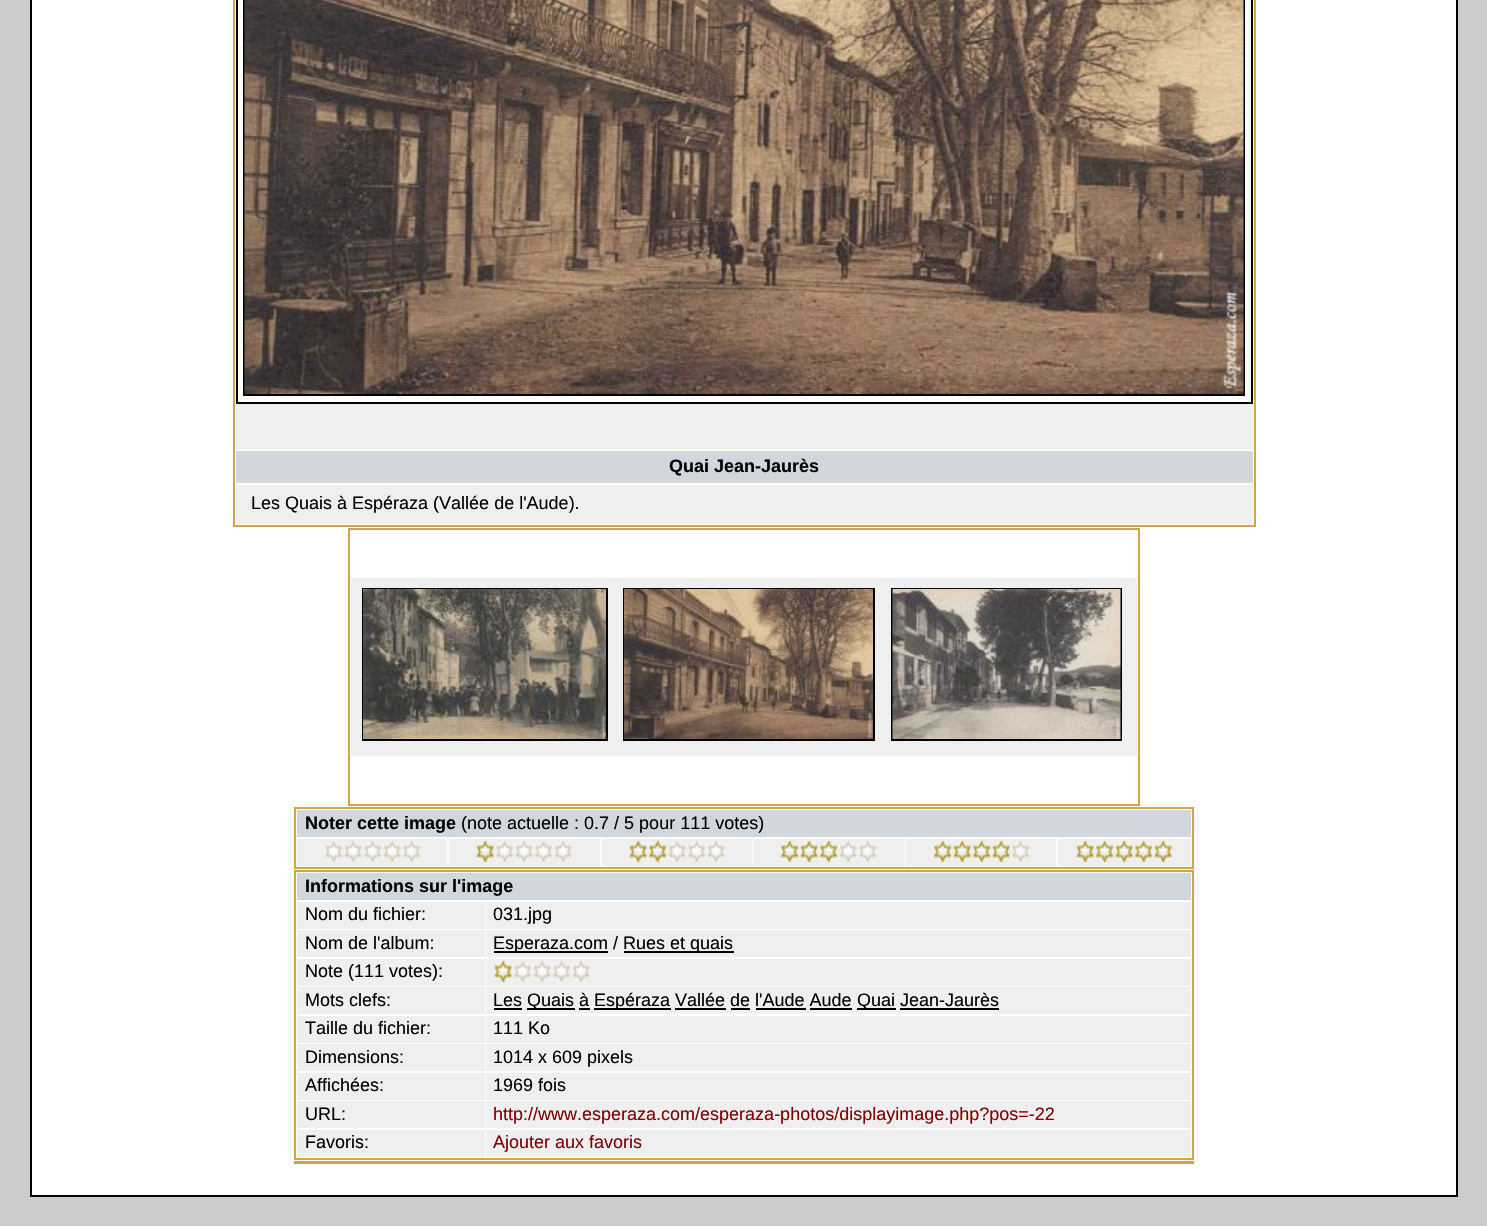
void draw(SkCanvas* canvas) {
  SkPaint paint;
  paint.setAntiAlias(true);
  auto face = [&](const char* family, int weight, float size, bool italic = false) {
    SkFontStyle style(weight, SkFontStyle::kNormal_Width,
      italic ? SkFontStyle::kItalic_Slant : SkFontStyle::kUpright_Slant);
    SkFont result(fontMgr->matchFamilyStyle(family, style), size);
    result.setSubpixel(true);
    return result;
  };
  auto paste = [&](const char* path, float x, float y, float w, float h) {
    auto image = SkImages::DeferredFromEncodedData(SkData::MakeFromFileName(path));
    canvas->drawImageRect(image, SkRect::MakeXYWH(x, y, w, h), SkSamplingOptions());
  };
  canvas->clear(0xffcccccc);
  paint.setColor(0xffffffff);
  canvas->drawRect(SkRect::MakeXYWH(31, -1, 1426, 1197), paint);
  paint.setStroke(true);
  paint.setStrokeWidth(2);
  paint.setColor(0xff000000);
  canvas->drawRect(SkRect::MakeXYWH(31, -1, 1426, 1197), paint);
  paint.setColor(0xffd1a548);
  canvas->drawRect(SkRect::MakeXYWH(234, -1, 1021, 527), paint);
  paint.setStroke(false);
  paint.setColor(0xffefefef);
  canvas->drawRect(SkRect::MakeXYWH(236, 404, 1017, 45), paint);
  paint.setStroke(true);
  paint.setColor(0xff000000);
  canvas->drawRect(SkRect::MakeXYWH(237, -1, 1015, 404), paint);
  canvas->drawRect(SkRect::MakeXYWH(244, -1, 1000, 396), paint);
  paste("img/1.png", 244, 0, 1000, 394);
  paint.setStroke(false);
  paint.setColor(0xffd1d7dc);
  canvas->drawRect(SkRect::MakeXYWH(236, 451, 1017, 32), paint);
  paint.setColor(0xffefefef);
  canvas->drawRect(SkRect::MakeXYWH(236, 485, 1017, 39), paint);
  paint.setStroke(true);
  paint.setColor(0xffd1a548);
  canvas->drawRect(SkRect::MakeXYWH(349, 529, 790, 276), paint);
  paint.setStroke(false);
  paint.setColor(0xffefefef);
  canvas->drawRect(SkRect::MakeXYWH(351, 578, 786, 178), paint);
  paint.setStroke(true);
  paint.setColor(0xff000000);
  canvas->drawRect(SkRect::MakeXYWH(363, 589, 244, 151), paint);
  canvas->drawRect(SkRect::MakeXYWH(624, 589, 250, 151), paint);
  canvas->drawRect(SkRect::MakeXYWH(892, 589, 229, 151), paint);
  paste("img/2.png", 363, 589, 243, 150);
  paste("img/3.png", 624, 589, 249, 150);
  paste("img/4.png", 892, 589, 229, 150);
  paint.setColor(0xffd1a548);
  canvas->drawRect(SkRect::MakeXYWH(295, 808, 898, 60), paint);
  paint.setStroke(false);
  paint.setColor(0xffd1d7dc);
  canvas->drawRect(SkRect::MakeXYWH(297, 810, 894, 27), paint);
  paint.setColor(0xffefefef);
  canvas->drawRect(SkRect::MakeXYWH(297, 839, 150, 27), paint);
  paste("img/5.png", 324, 841, 97, 21);
  canvas->drawRect(SkRect::MakeXYWH(449, 839, 151, 27), paint);
  paste("img/6.png", 475, 841, 98, 21);
  canvas->drawRect(SkRect::MakeXYWH(602, 839, 150, 27), paint);
  paste("img/7.png", 628, 841, 98, 21);
  canvas->drawRect(SkRect::MakeXYWH(753, 839, 152, 27), paint);
  paste("img/8.png", 780, 841, 97, 21);
  canvas->drawRect(SkRect::MakeXYWH(906, 839, 150, 27), paint);
  paste("img/9.png", 933, 841, 97, 21);
  canvas->drawRect(SkRect::MakeXYWH(1058, 839, 133, 27), paint);
  paste("img/10.png", 1075, 841, 98, 21);
  paint.setStroke(true);
  paint.setColor(0xffd1a548);
  canvas->drawRect(SkRect::MakeXYWH(295, 871, 898, 288), paint);
  paint.setStroke(false);
  {
    const struct { float x, y, w, h; SkColor color; } items[] = {
      {297, 873, 894, 27, 0xffd1d7dc},
      {297, 902, 188, 27, 0xffefefef},
      {486, 902, 705, 27, 0xffefefef},
      {297, 930, 188, 27, 0xffefefef},
      {486, 930, 705, 27, 0xffefefef},
      {494, 951, 114, 2, 0xff000000},
      {624, 951, 110, 2, 0xff000000},
      {297, 959, 188, 27, 0xffefefef},
      {486, 959, 705, 27, 0xffefefef},
    };
    for (auto [x, y, w, h, color] : items) {
      paint.setColor(color);
      canvas->drawRect(SkRect::MakeXYWH(x, y, w, h), paint);
    }
  }
  paste("img/6.png", 493, 961, 98, 21);
  {
    const struct { float x, y, w, h; SkColor color; } items[] = {
      {297, 987, 188, 27, 0xffefefef},
      {486, 987, 705, 27, 0xffefefef},
      {494, 1008, 28, 2, 0xff000000},
      {527, 1008, 48, 2, 0xff000000},
      {579, 1008, 11, 2, 0xff000000},
      {594, 1008, 77, 2, 0xff000000},
      {675, 1008, 51, 2, 0xff000000},
      {731, 1008, 19, 2, 0xff000000},
      {756, 1008, 50, 2, 0xff000000},
      {810, 1008, 42, 2, 0xff000000},
      {857, 1008, 39, 2, 0xff000000},
      {900, 1008, 99, 2, 0xff000000},
      {297, 1016, 188, 27, 0xffefefef},
      {486, 1016, 705, 27, 0xffefefef},
      {297, 1044, 188, 27, 0xffefefef},
      {486, 1044, 705, 27, 0xffefefef},
      {297, 1073, 188, 27, 0xffefefef},
      {486, 1073, 705, 27, 0xffefefef},
      {297, 1101, 188, 27, 0xffefefef},
      {486, 1101, 705, 27, 0xffefefef},
      {297, 1130, 188, 27, 0xffefefef},
      {486, 1130, 705, 27, 0xffefefef},
      {294, 1161, 900, 3, 0xffd1a548},
    };
    for (auto [x, y, w, h, color] : items) {
      paint.setColor(color);
      canvas->drawRect(SkRect::MakeXYWH(x, y, w, h), paint);
    }
  }
  auto f0 = face("Liberation Sans", 700, 18);
  paint.setColor(0xff000000);
  canvas->drawString("Quai Jean-Jaurès", 669, 472, f0, paint);
  auto f1 = face("Liberation Sans", 400, 18);
  canvas->drawString("Les Quais à Espéraza (Vallée de l'Aude).", 251, 509, f1, paint);
  canvas->drawString("Noter cette image", 305, 829, f0, paint);
  canvas->drawString("(note actuelle : 0.7 / 5 pour 111 votes)", 461, 829, f1, paint);
  canvas->drawString("Informations sur l'image", 305, 892, f0, paint);
  {
    const struct { const char* s; float x, y; } items[] = {
      {"Nom du fichier:", 305, 920},
      {"031.jpg", 493, 920},
      {"Nom de l'album:", 305, 949},
      {"Esperaza.com /", 493, 949},
      {"Rues et quais", 623, 949},
      {"Note (111 votes):", 305, 977},
      {"Mots clefs:", 305, 1006},
      {"Les", 493, 1006},
      {"Quais à", 527, 1006},
      {"Espéraza Vallée de l'Aude Aude", 594, 1006},
      {"Quai Jean-Jaurès", 857, 1006},
      {"Taille du fichier:", 305, 1034},
      {"111 Ko", 493, 1034},
      {"Dimensions:", 305, 1063},
      {"1014 x 609 pixels", 493, 1063},
      {"Affichées:", 305, 1091},
      {"1969 fois", 493, 1091},
      {"URL:", 305, 1120},
    };
    for (auto [s, x, y] : items) {
      canvas->drawString(s, x, y, f1, paint);
    }
  }
  paint.setColor(0xff800000);
  canvas->drawString("http://www.esperaza.com/esperaza-photos/displayimage.php?pos=-22", 493, 1120, f1, paint);
  paint.setColor(0xff000000);
  canvas->drawString("Favoris:", 305, 1148, f1, paint);
  paint.setColor(0xff800000);
  canvas->drawString("Ajouter aux favoris", 493, 1148, f1, paint);
}
